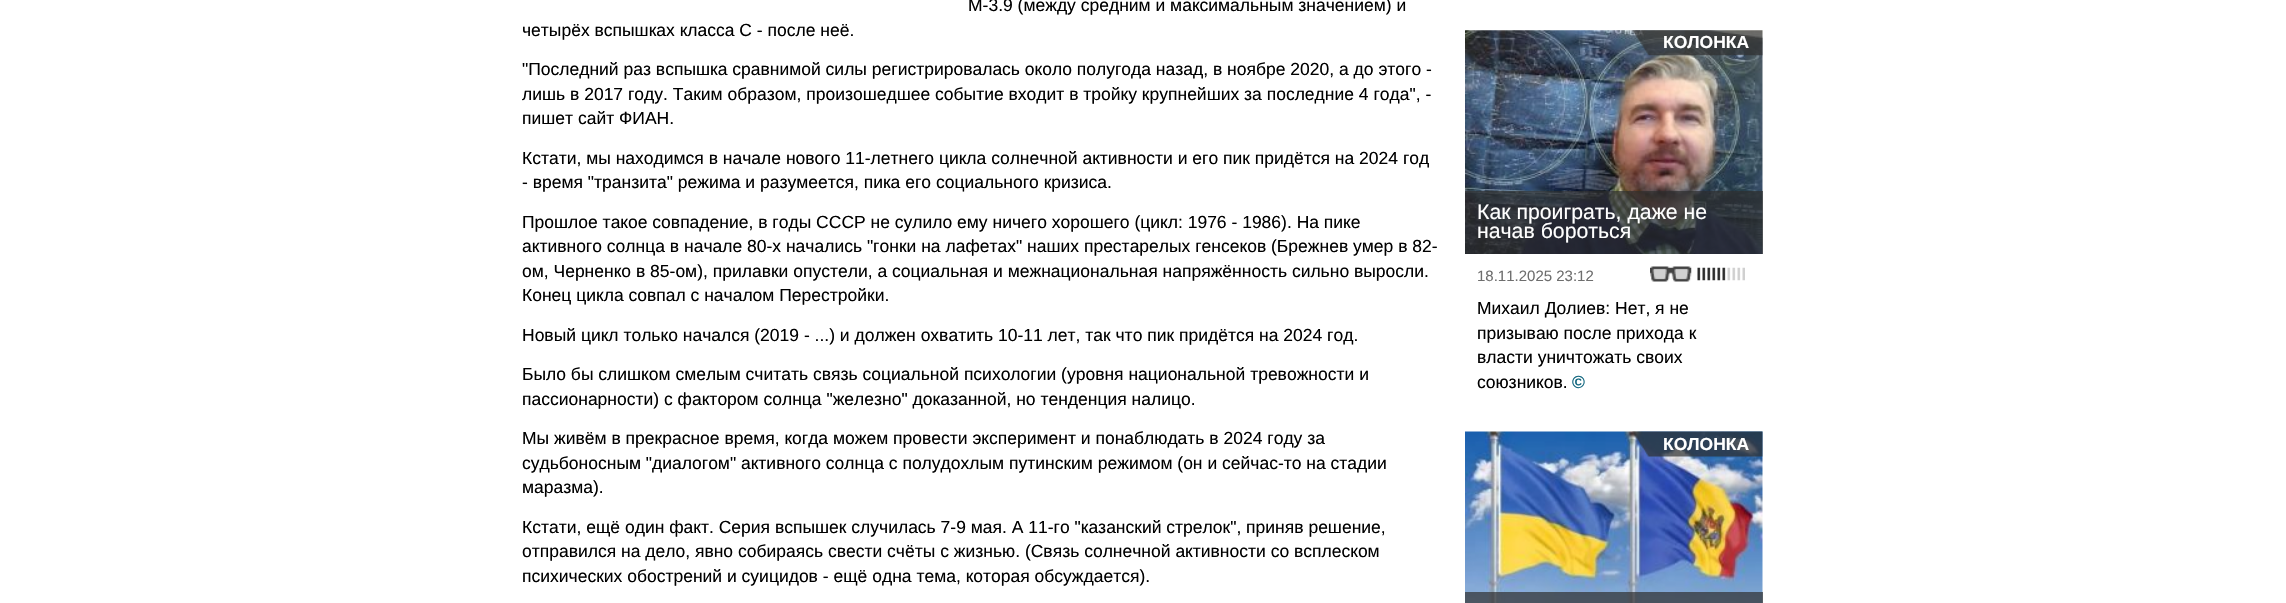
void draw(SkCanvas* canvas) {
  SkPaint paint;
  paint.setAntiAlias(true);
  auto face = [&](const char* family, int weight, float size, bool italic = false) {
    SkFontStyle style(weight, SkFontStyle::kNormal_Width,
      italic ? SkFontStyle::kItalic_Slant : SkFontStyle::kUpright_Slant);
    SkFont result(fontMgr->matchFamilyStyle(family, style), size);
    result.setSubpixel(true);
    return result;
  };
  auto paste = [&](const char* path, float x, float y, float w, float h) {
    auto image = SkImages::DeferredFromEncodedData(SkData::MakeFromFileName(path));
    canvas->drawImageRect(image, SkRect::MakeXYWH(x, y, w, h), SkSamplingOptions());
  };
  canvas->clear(0xffffffff);
  paste("img/1.png", 1465, 30, 298, 224);
  paste("img/2.png", 1632, 30, 131, 26);
  paint.setColor(0xb32e2e2e);
  canvas->drawRect(SkRect::MakeXYWH(1465, 191, 298, 63), paint);
  paste("img/3.png", 1650, 266, 42, 16);
  paste("img/4.png", 1697, 267, 48, 14);
  paste("img/5.png", 1465, 431, 298, 172);
  paste("img/6.png", 1632, 431, 131, 26);
  canvas->drawRect(SkRect::MakeXYWH(1465, 592, 298, 11), paint);
  auto f0 = face("Liberation Sans", 400, 17.5f);
  paint.setColor(0xff000000);
  {
    const struct { const char* s; float x, y; } items[] = {
      {"М-3.9 (между средним и максимальным значением) и", 968, 11},
      {"четырёх вспышках класса С - после неё.", 522, 36},
      {"\"Последний раз вспышка сравнимой силы регистрировалась около полугода назад, в ноябре 2020, а до этого -", 522, 75},
      {"лишь в 2017 году. Таким образом, произошедшее событие входит в тройку крупнейших за последние 4 года\", -", 522, 100},
      {"пишет сайт ФИАН.", 522, 124},
      {"Кстати, мы находимся в начале нового 11-летнего цикла солнечной активности и его пик придётся на 2024 год", 522, 164},
      {"- время \"транзита\" режима и разумеется, пика его социального кризиса.", 522, 188},
      {"Прошлое такое совпадение, в годы СССР не сулило ему ничего хорошего (цикл: 1976 - 1986). На пике", 522, 228},
      {"активного солнца в начале 80-х начались \"гонки на лафетах\" наших престарелых генсеков (Брежнев умер в 82-", 522, 252},
      {"ом, Черненко в 85-ом), прилавки опустели, а социальная и межнациональная напряжённость сильно выросли.", 522, 277},
      {"Конец цикла совпал с началом Перестройки.", 522, 301},
      {"Новый цикл только начался (2019 - ...) и должен охватить 10-11 лет, так что пик придётся на 2024 год.", 522, 341},
      {"Было бы слишком смелым считать связь социальной психологии (уровня национальной тревожности и", 522, 380},
      {"пассионарности) с фактором солнца \"железно\" доказанной, но тенденция налицо.", 522, 405},
      {"Мы живём в прекрасное время, когда можем провести эксперимент и понаблюдать в 2024 году за", 522, 444},
      {"судьбоносным \"диалогом\" активного солнца с полудохлым путинским режимом (он и сейчас-то на стадии", 522, 469},
      {"маразма).", 522, 493},
      {"Кстати, ещё один факт. Серия вспышек случилась 7-9 мая. А 11-го \"казанский стрелок\", приняв решение,", 522, 533},
      {"отправился на дело, явно собираясь свести счёты с жизнью. (Связь солнечной активности со всплеском", 522, 557},
      {"психических обострений и суицидов - ещё одна тема, которая обсуждается).", 522, 582},
    };
    for (auto [s, x, y] : items) {
      canvas->drawString(s, x, y, f0, paint);
    }
  }
  auto f1 = face("Liberation Sans", 700, 17.5f);
  paint.setColor(0xffffffff);
  canvas->drawString("КОЛОНКА", 1663, 48, f1, paint);
  auto f2 = face("Liberation Sans", 400, 21.25f);
  canvas->drawString("Как проиграть, даже не", 1477, 219, f2, paint);
  canvas->drawString("начав бороться", 1477, 238, f2, paint);
  auto f3 = face("Liberation Sans", 400, 15);
  paint.setColor(0xff6e6e6e);
  canvas->drawString("18.11.2025 23:12", 1477, 281, f3, paint);
  paint.setColor(0xff000000);
  {
    const struct { const char* s; float x, y; } items[] = {
      {"Михаил Долиев: Нет, я не", 1477, 314},
      {"призываю после прихода к", 1477, 339},
      {"власти уничтожать своих", 1477, 363},
      {"союзников.", 1477, 388},
    };
    for (auto [s, x, y] : items) {
      canvas->drawString(s, x, y, f0, paint);
    }
  }
  paint.setColor(0xff12677f);
  canvas->drawString("©", 1572, 388, f1, paint);
  paint.setColor(0xffffffff);
  canvas->drawString("КОЛОНКА", 1663, 450, f1, paint);
}
